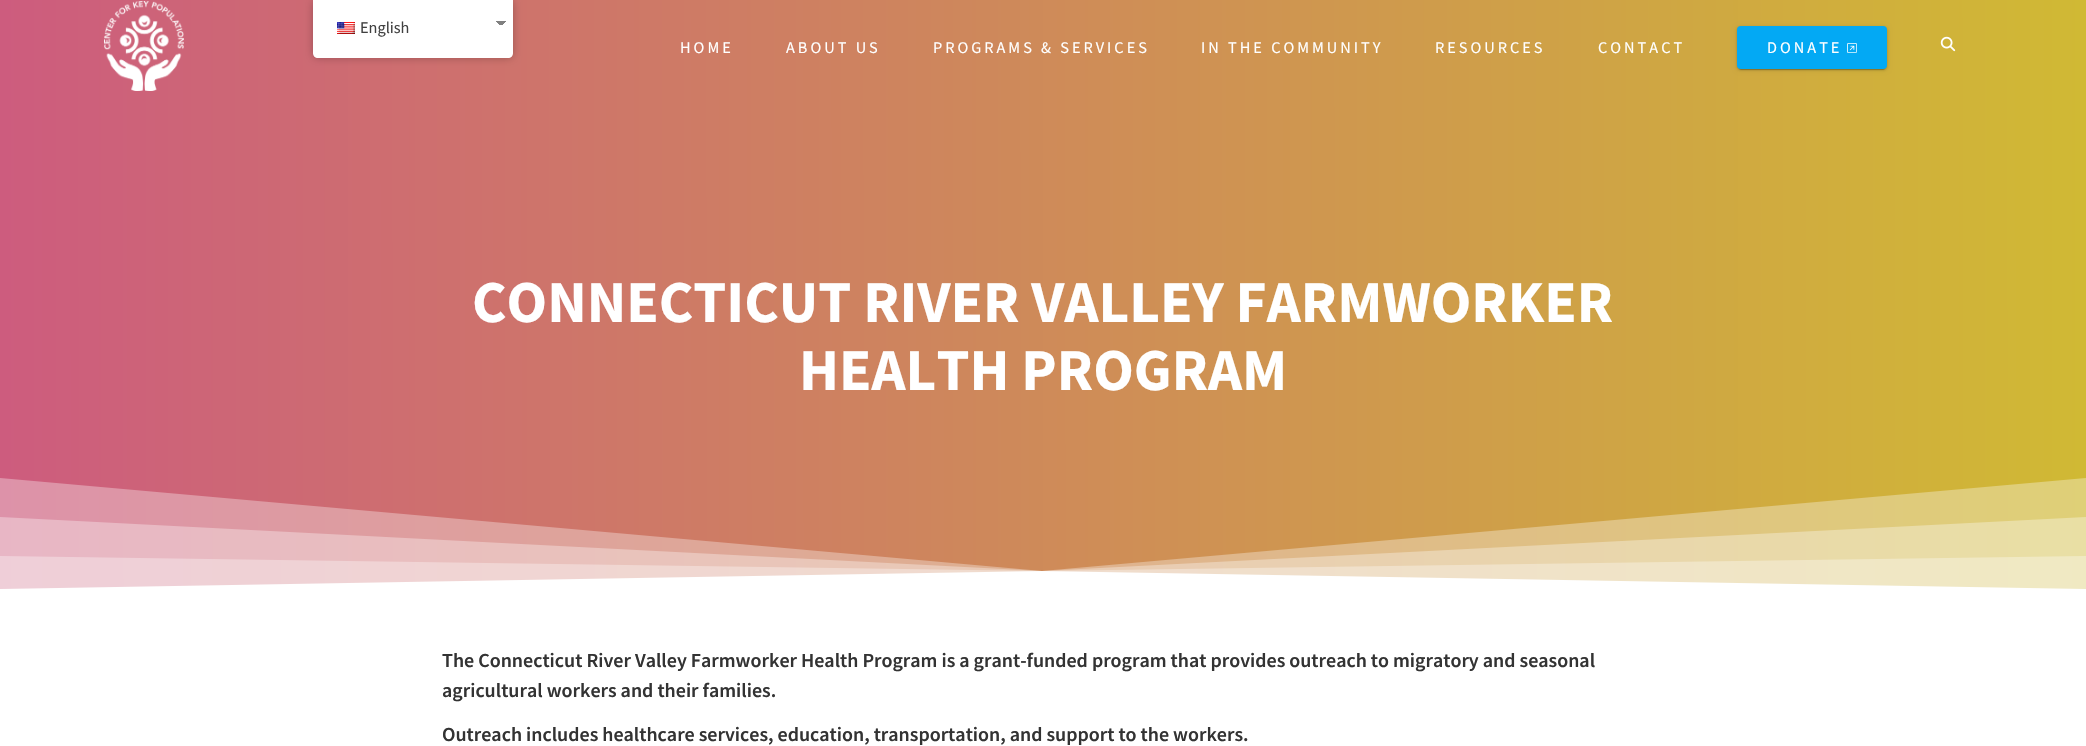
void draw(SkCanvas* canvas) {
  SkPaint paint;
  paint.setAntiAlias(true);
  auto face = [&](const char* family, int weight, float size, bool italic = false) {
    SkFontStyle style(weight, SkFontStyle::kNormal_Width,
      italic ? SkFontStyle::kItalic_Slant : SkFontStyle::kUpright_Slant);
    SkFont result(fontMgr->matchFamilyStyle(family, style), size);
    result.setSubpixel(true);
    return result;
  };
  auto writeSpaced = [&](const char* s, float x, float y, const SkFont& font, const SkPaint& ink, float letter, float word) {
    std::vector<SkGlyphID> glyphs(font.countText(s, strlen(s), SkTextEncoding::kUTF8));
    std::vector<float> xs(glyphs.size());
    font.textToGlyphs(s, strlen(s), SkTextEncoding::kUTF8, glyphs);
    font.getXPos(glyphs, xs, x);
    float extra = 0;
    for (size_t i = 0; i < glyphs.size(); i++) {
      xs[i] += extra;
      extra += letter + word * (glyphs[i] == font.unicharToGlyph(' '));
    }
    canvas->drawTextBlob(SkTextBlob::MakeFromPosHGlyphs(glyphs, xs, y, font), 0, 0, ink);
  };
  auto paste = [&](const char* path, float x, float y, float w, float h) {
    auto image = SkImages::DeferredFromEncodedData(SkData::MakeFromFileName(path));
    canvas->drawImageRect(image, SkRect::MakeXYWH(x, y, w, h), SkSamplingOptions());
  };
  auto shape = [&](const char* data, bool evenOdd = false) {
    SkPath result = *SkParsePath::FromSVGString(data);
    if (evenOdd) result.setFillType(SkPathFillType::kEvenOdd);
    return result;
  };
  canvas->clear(0xffffffff);
  {
    const SkColor colors[] = {0xffcd5c7e, 0xffd0b934};
    const float stops[] = {0, 1};
    const SkPoint ends[] = {{0, 298}, {2086, 297}};
    paint.setShader(SkGradientShader::MakeLinear(ends, colors, stops, 2, SkTileMode::kClamp));
    paint.setAlpha(255);
  }
  canvas->drawRect(SkRect::MakeXYWH(0, 0, 2086, 589), paint);
  paint.setShader(nullptr);
  paint.setColor(0x40000000);
  paint.setMaskFilter(SkMaskFilter::MakeBlur(kNormal_SkBlurStyle, 4));
  canvas->drawRoundRect(SkRect::MakeXYWH(313, 0, 200, 58), 5, 5, paint);
  paint.setMaskFilter(nullptr);
  paint.setColor(0xffffffff);
  canvas->drawPath(shape("M313 0H513V53C513 56 511 58 508 58H318C315 58 313 56 313 53Z"), paint);
  {
    const SkColor colors[] = {0xff808080, 0xffffffff};
    const float stops[] = {0.5f, 0.5f};
    const SkPoint ends[] = {{501, 21}, {506, 26}};
    paint.setShader(SkGradientShader::MakeLinear(ends, colors, stops, 2, SkTileMode::kClamp));
    paint.setAlpha(255);
  }
  canvas->drawRect(SkRect::MakeXYWH(501, 21, 5, 4), paint);
  {
    const SkColor colors[] = {0xffffffff, 0xff808080};
    const float stops[] = {0.5f, 0.5f};
    const SkPoint ends[] = {{496, 26}, {501, 21}};
    paint.setShader(SkGradientShader::MakeLinear(ends, colors, stops, 2, SkTileMode::kClamp));
    paint.setAlpha(255);
  }
  canvas->drawRect(SkRect::MakeXYWH(496, 21, 5, 4), paint);
  paste("img/1.png", 337, 22, 18, 12);
  canvas->save();
  canvas->clipRect(SkRect::MakeXYWH(0, 472, 2086, 123));
  paint.setShader(nullptr);
  paint.setColor(0x54ffffff);
  canvas->drawPath(shape("M2086 597V478L1042 571L-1 478V597Z"), paint);
  canvas->drawPath(shape("M2086 597V517L1042 571L-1 517V597Z"), paint);
  canvas->drawPath(shape("M2086 597V556L1042 571L-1 556V597Z"), paint);
  paint.setColor(0xffffffff);
  canvas->drawPath(shape("M2086 597V589L1042 571L-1 589V597Z"), paint);
  canvas->restore();
  paste("img/2.png", 104, 1, 80, 90);
  paint.setColor(0x1f000000);
  paint.setMaskFilter(SkMaskFilter::MakeBlur(kNormal_SkBlurStyle, 2.5f));
  canvas->drawRoundRect(SkRect::MakeXYWH(1737, 27, 150, 43), 4, 4, paint);
  paint.setMaskFilter(nullptr);
  paint.setColor(0x33000000);
  paint.setMaskFilter(SkMaskFilter::MakeBlur(kNormal_SkBlurStyle, 0.5f));
  canvas->drawRoundRect(SkRect::MakeXYWH(1739, 31, 146, 39), 2, 2, paint);
  paint.setMaskFilter(nullptr);
  paint.setColor(0x24000000);
  paint.setMaskFilter(SkMaskFilter::MakeBlur(kNormal_SkBlurStyle, 1));
  canvas->drawRoundRect(SkRect::MakeXYWH(1737, 27, 150, 43), 4, 4, paint);
  paint.setMaskFilter(nullptr);
  paint.setColor(0xff03a9f4);
  canvas->drawRoundRect(SkRect::MakeXYWH(1737, 26, 150, 43), 4, 4, paint);
  paste("img/3.png", 1847, 43, 10, 10);
  paste("img/4.png", 1940, 36, 16, 16);
  auto f0 = face("Source Sans Pro", 400, 16.25f);
  paint.setColor(0xff404040);
  canvas->drawString("English", 360, 33, f0, paint);
  auto f1 = face("Source Sans Pro", 700, 59.4f);
  paint.setColor(0xffffffff);
  canvas->drawString("CONNECTICUT RIVER VALLEY FARMWORKER", 472, 322, f1, paint);
  canvas->drawString("HEALTH PROGRAM", 799, 390, f1, paint);
  auto f2 = face("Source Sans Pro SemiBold", 600, 19.98f);
  paint.setColor(0xff333333);
  {
    const struct { const char* s; float x, y; } items[] = {
      {"The Connecticut River Valley Farmworker Health Program is a grant-funded program that provides outreach to migratory and seasonal", 442, 667},
      {"agricultural workers and their families.", 442, 697},
      {"Outreach includes healthcare services, education, transportation, and support to the workers.", 442, 741},
    };
    for (auto [s, x, y] : items) {
      canvas->drawString(s, x, y, f2, paint);
    }
  }
  paint.setColor(0xffffffff);
  {
    const struct { const char* s; float x, y; } items[] = {
      {"HOME", 680, 53},
      {"ABOUT US", 786, 53},
      {"PROGRAMS & SERVICES", 933, 53},
      {"IN THE COMMUNITY", 1201, 53},
      {"RESOURCES", 1435, 53},
      {"CONTACT", 1598, 53},
      {"DONATE", 1767, 53},
    };
    for (auto [s, x, y] : items) {
      writeSpaced(s, x, y, f0, paint, 3, 0);
    }
  }
}
